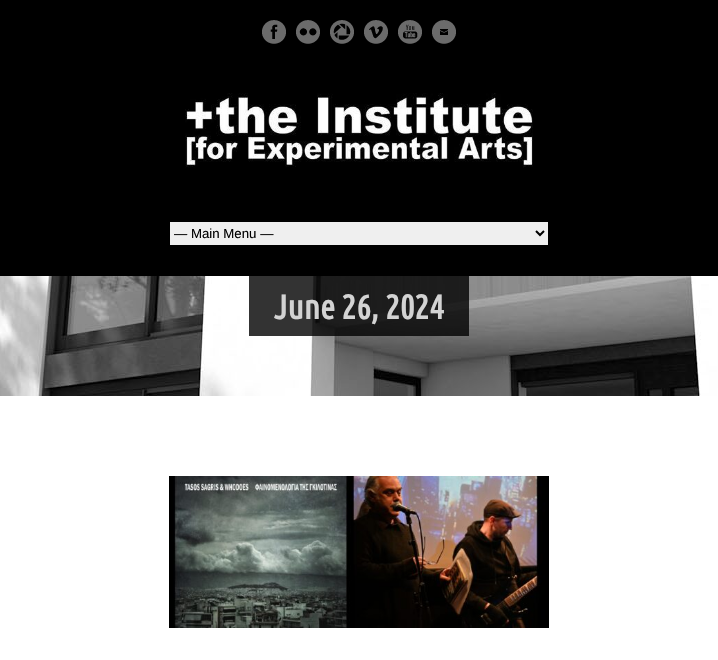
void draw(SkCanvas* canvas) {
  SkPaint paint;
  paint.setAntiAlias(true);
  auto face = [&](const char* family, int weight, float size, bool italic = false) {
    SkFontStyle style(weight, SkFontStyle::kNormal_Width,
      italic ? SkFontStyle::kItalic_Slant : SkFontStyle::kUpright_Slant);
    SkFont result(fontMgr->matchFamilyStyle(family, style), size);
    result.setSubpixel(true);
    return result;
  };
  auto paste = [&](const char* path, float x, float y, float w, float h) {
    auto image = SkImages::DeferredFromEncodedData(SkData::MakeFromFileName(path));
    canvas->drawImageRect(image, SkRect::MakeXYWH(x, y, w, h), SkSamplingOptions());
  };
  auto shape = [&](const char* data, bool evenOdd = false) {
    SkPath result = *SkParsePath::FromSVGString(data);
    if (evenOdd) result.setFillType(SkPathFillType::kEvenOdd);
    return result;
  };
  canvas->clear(0xffffffff);
  paint.setColor(0xff000000);
  canvas->drawRect(SkRect::MakeXYWH(0, 0, 718, 276), paint);
  paste("img/1.png", 262, 20, 24, 24);
  paste("img/2.png", 296, 20, 24, 24);
  paste("img/3.png", 330, 20, 24, 24);
  paste("img/4.png", 364, 20, 24, 24);
  paste("img/5.png", 398, 20, 24, 24);
  paste("img/6.png", 432, 20, 24, 24);
  paste("img/7.png", 185, 93, 348, 75);
  paint.setColor(0xffefefef);
  canvas->drawRect(SkRect::MakeXYWH(170, 222, 378, 23), paint);
  paint.setStroke(true);
  paint.setStrokeWidth(2);
  paint.setColor(0xff000000);
  canvas->drawPath(shape("M536 231L540 235L544 231"), paint);
  paste("img/8.png", 0, 276, 718, 120);
  paint.setStroke(false);
  paint.setColor(0xcc000000);
  canvas->drawRect(SkRect::MakeXYWH(249, 276, 220, 60), paint);
  paste("img/9.png", 169, 476, 380, 152);
  auto f0 = face("Liberation Sans", 400, 13.25f);
  paint.setColor(0xff000000);
  canvas->drawString("— Main Menu —", 174, 238, f0, paint);
  auto f1 = face("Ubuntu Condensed", 700, 34);
  paint.setColor(0xffd3d3d3);
  canvas->drawString("June 26, 2024", 274, 319, f1, paint);
}
